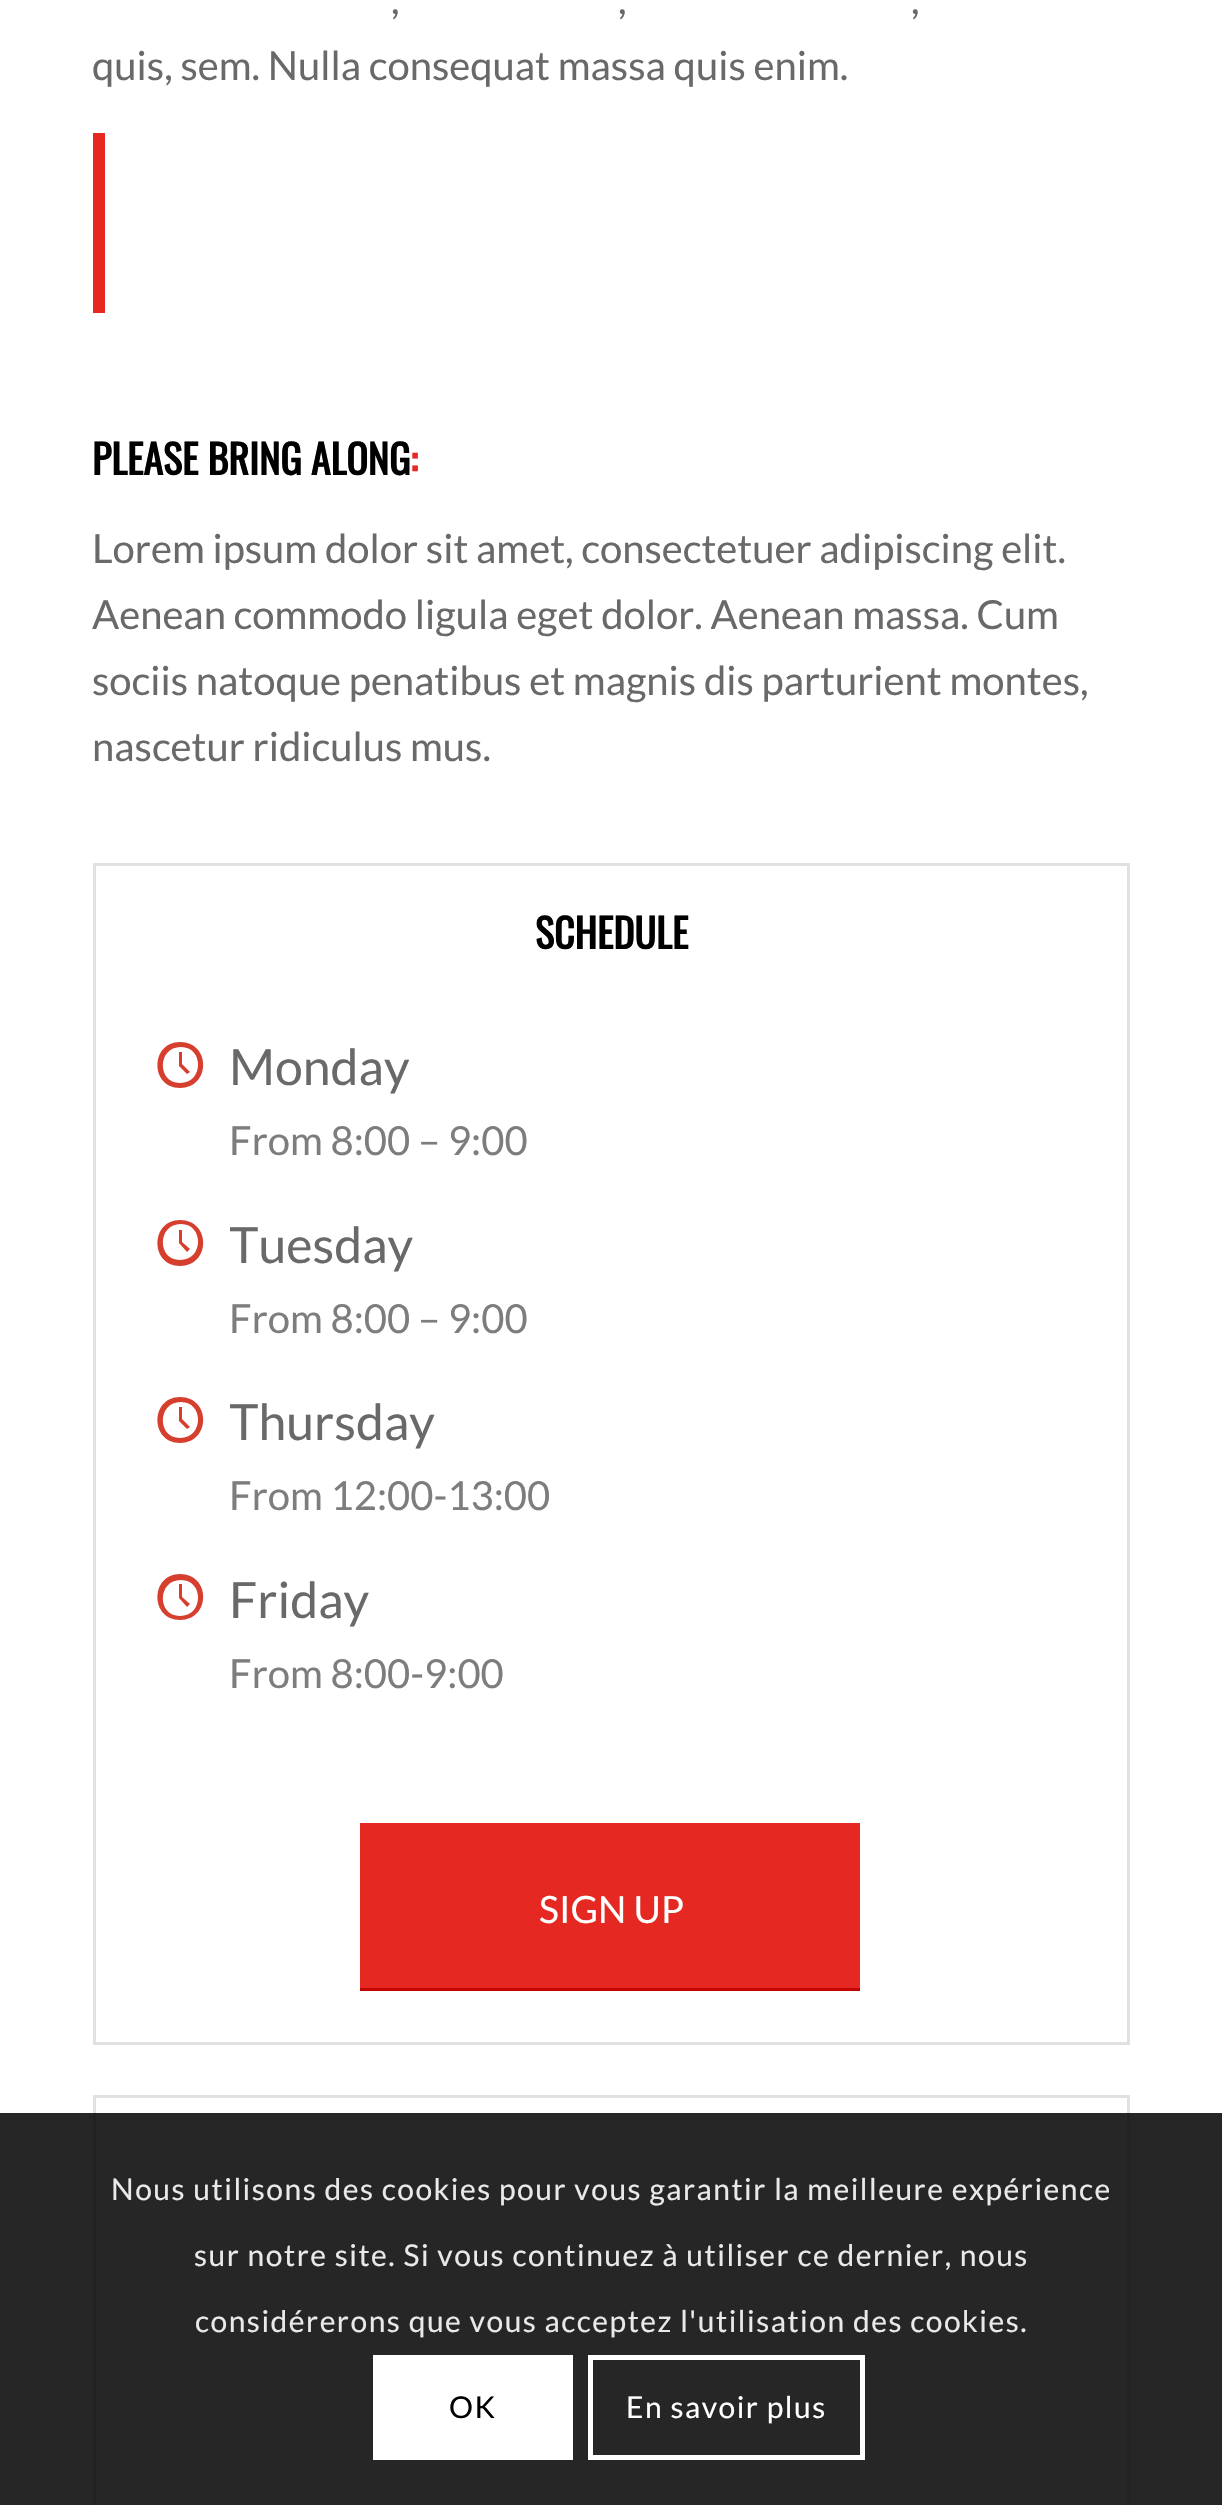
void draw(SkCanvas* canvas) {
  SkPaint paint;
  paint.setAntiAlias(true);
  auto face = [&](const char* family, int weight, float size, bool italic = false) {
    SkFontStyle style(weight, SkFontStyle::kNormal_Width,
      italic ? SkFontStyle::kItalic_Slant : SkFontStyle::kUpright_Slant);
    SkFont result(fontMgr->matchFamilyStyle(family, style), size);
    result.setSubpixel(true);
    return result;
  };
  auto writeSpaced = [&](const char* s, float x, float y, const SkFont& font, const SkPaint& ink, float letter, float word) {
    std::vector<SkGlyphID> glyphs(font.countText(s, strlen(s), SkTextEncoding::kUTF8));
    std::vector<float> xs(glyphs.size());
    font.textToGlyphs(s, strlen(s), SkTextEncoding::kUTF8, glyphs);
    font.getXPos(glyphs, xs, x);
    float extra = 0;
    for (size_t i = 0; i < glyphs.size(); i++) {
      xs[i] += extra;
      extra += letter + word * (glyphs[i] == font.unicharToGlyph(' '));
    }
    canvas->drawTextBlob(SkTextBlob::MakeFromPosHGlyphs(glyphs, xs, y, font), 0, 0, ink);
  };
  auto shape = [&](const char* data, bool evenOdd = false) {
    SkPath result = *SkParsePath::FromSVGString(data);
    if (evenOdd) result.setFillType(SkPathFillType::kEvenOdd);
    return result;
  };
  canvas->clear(0xffffffff);
  paint.setColor(0xffe52821);
  canvas->drawRect(SkRect::MakeXYWH(93, 133, 12, 180), paint);
  paint.setStroke(true);
  paint.setStrokeWidth(3);
  paint.setColor(0xffe1e1e1);
  canvas->drawRect(SkRect::MakeXYWH(94.5f, 864.5f, 1034, 1179), paint);
  paint.setStroke(false);
  paint.setColor(0xffd63e2d);
  canvas->drawPath(shape("M180 1042C211 1042 211 1088 180 1088C150 1088 150 1042 180 1042ZM180 1083C204 1083 204 1047 181 1047C157 1047 157 1083 180 1083ZM182 1052V1064L190 1072L187 1074L179 1066V1052Z"), paint);
  canvas->drawPath(shape("M180 1220C211 1220 211 1266 180 1266C150 1266 150 1220 180 1220ZM180 1260C204 1260 204 1224 181 1224C157 1224 157 1260 180 1260ZM182 1230V1242L190 1249L187 1252L179 1243V1230Z"), paint);
  canvas->drawPath(shape("M180 1397C211 1397 211 1443 180 1443C150 1443 150 1397 180 1397ZM180 1438C204 1438 204 1402 181 1402C157 1402 157 1438 180 1438ZM182 1407V1419L190 1427L187 1429L179 1421V1407Z"), paint);
  canvas->drawPath(shape("M180 1574C211 1574 211 1620 180 1620C150 1620 150 1574 180 1574ZM180 1616C204 1616 204 1580 181 1580C157 1580 157 1616 180 1616ZM182 1584V1597L190 1604L187 1607L179 1598V1584Z"), paint);
  paint.setColor(0xffe52821);
  canvas->drawRect(SkRect::MakeXYWH(360, 1823, 500, 165), paint);
  paint.setColor(0xffc30600);
  canvas->drawRect(SkRect::MakeXYWH(360, 1988, 500, 3), paint);
  paint.setStroke(true);
  paint.setColor(0xffe1e1e1);
  canvas->drawRect(SkRect::MakeXYWH(94.5f, 2096.5f, 1034, 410), paint);
  paint.setStroke(false);
  paint.setColor(0xd9000000);
  canvas->drawRect(SkRect::MakeXYWH(0, 2113, 1222, 392), paint);
  paint.setColor(0xffffffff);
  canvas->drawRect(SkRect::MakeXYWH(373, 2355, 200, 105), paint);
  paint.setStroke(true);
  paint.setStrokeWidth(5);
  canvas->drawRect(SkRect::MakeXYWH(590.5f, 2357.5f, 272, 100), paint);
  auto f0 = face("Lato", 400, 40);
  paint.setStroke(false);
  paint.setColor(0xff696969);
  {
    const struct { const char* s; float x, y; } items[] = {
      {",", 391, 14},
      {",", 618, 14},
      {",", 911, 14},
      {"quis, sem. Nulla consequat massa quis enim.", 92, 80},
    };
    for (auto [s, x, y] : items) {
      canvas->drawString(s, x, y, f0, paint);
    }
  }
  auto f1 = face("Oswald", 700, 40);
  paint.setColor(0xff000000);
  canvas->drawString("PLEASE BRING ALONG", 92, 475, f1, paint);
  paint.setColor(0xffe52821);
  canvas->drawString(":", 410, 475, f1, paint);
  paint.setColor(0xff696969);
  {
    const struct { const char* s; float x, y; } items[] = {
      {"Lorem ipsum dolor sit amet, consectetuer adipiscing elit.", 92, 563},
      {"Aenean commodo ligula eget dolor. Aenean massa. Cum", 92, 629},
      {"sociis natoque penatibus et magnis dis parturient montes,", 92, 695},
      {"nascetur ridiculus mus.", 92, 761},
    };
    for (auto [s, x, y] : items) {
      canvas->drawString(s, x, y, f0, paint);
    }
  }
  paint.setColor(0xff000000);
  canvas->drawString("SCHEDULE", 535, 949, f1, paint);
  auto f2 = face("Lato", 400, 50);
  paint.setColor(0xff696969);
  canvas->drawString("Monday", 229, 1085, f2, paint);
  paint.setColor(0xff7d7d7d);
  canvas->drawString("From 8:00 – 9:00", 229, 1155, f0, paint);
  canvas->save();
  canvas->clipRect(SkRect::MakeXYWH(230, 1208, 853, 177));
  paint.setColor(0xff696969);
  canvas->drawString("Tuesday", 229, 1263, f2, paint);
  canvas->restore();
  paint.setColor(0xff7d7d7d);
  canvas->drawString("From 8:00 – 9:00", 229, 1333, f0, paint);
  canvas->save();
  canvas->clipRect(SkRect::MakeXYWH(230, 1385, 853, 178));
  paint.setColor(0xff696969);
  canvas->drawString("Thursday", 229, 1440, f2, paint);
  canvas->restore();
  paint.setColor(0xff7d7d7d);
  canvas->drawString("From 12:00-13:00", 229, 1510, f0, paint);
  paint.setColor(0xff696969);
  canvas->drawString("Friday", 229, 1618, f2, paint);
  paint.setColor(0xff7d7d7d);
  canvas->drawString("From 8:00-9:00", 229, 1688, f0, paint);
  auto f3 = face("Lato", 400, 37.5f);
  paint.setColor(0xffffffff);
  canvas->drawString("SIGN UP", 539, 1923, f3, paint);
  auto f4 = face("Lato", 400, 30);
  paint.setColor(0xffe9e9e9);
  {
    const struct { const char* s; float x, y; } items[] = {
      {"Nous utilisons des cookies pour vous garantir la meilleure expérience", 111, 2200},
      {"sur notre site. Si vous continuez à utiliser ce dernier, nous", 194, 2266},
      {"considérerons que vous acceptez l'utilisation des cookies.", 195, 2332},
    };
    for (auto [s, x, y] : items) {
      writeSpaced(s, x, y, f4, paint, 1.5f, 0);
    }
  }
  paint.setColor(0xff000000);
  writeSpaced("OK", 449, 2418, f4, paint, 1.5f, 0);
  paint.setColor(0xffffffff);
  writeSpaced("En savoir plus", 626, 2418, f4, paint, 1.5f, 0);
}
